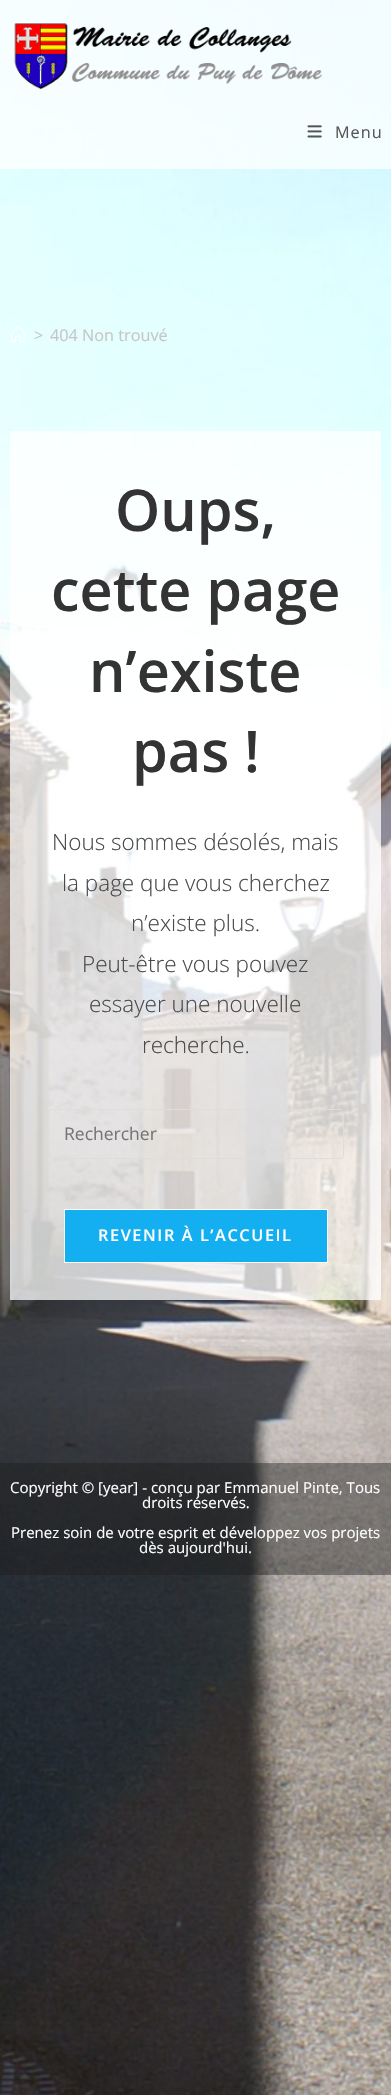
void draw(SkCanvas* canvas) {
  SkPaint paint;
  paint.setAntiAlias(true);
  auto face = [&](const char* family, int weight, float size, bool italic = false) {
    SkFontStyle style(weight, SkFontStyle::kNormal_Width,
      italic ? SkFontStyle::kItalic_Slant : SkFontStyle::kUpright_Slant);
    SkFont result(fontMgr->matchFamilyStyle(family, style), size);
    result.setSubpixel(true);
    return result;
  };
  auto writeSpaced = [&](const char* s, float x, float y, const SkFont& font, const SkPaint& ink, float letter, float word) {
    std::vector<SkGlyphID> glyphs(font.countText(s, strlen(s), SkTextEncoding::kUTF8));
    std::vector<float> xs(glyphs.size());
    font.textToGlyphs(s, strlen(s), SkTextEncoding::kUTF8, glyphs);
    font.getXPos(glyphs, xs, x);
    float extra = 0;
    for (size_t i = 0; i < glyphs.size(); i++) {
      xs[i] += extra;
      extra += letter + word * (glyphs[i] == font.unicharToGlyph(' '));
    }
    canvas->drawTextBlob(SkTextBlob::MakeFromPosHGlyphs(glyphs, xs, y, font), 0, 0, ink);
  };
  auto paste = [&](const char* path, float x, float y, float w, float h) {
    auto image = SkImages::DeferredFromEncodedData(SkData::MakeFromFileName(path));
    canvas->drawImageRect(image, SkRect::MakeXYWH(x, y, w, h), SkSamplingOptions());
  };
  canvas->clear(0xffffffff);
  paste("img/1.png", 0, 0, 391, 2095);
  paint.setColor(0xbfffffff);
  canvas->drawRect(SkRect::MakeXYWH(0, 0, 391, 169), paint);
  paste("img/2.png", 14, 23, 308, 67);
  paste("img/3.png", 307, 125, 15, 13);
  paste("img/4.png", 10, 326, 17, 17);
  canvas->drawRect(SkRect::MakeXYWH(10, 431, 371, 869), paint);
  paint.setStroke(true);
  paint.setStrokeWidth(1);
  paint.setColor(0xffdddddd);
  canvas->drawRoundRect(SkRect::MakeXYWH(48.5f, 1109.5f, 295, 49), 3.5f, 3.5f, paint);
  paint.setStroke(false);
  paint.setColor(0xff13aff0);
  canvas->drawRect(SkRect::MakeXYWH(64.5f, 1209.5f, 263, 53), paint);
  paint.setStroke(true);
  paint.setColor(0xffffffff);
  canvas->drawRect(SkRect::MakeXYWH(64.5f, 1209.5f, 263, 53), paint);
  paint.setStroke(false);
  paint.setColor(0x691b1b1b);
  canvas->drawRect(SkRect::MakeXYWH(0, 1463, 391, 112), paint);
  auto f0 = face("Open Sans", 400, 16.25f);
  paint.setColor(0xff555555);
  writeSpaced("Menu", 335, 138, f0, paint, 1, 0);
  paint.setColor(0xffc6c6c6);
  canvas->drawString(">", 34, 341, f0, paint);
  canvas->drawString("404 Non trouvé", 50, 341, f0, paint);
  auto f1 = face("Open Sans", 600, 57.5f);
  paint.setColor(0xff333333);
  {
    const struct { const char* s; float x, y; } items[] = {
      {"Oups,", 115, 531},
      {"cette page", 51, 611},
      {"n’existe", 89, 692},
      {"pas !", 132, 772},
    };
    for (auto [s, x, y] : items) {
      canvas->drawString(s, x, y, f1, paint);
    }
  }
  auto f2 = face("Open Sans", 300, 22.5f);
  paint.setColor(0xff4a4a4a);
  {
    const struct { const char* s; float x, y; } items[] = {
      {"Nous sommes désolés, mais", 52, 850},
      {"la page que vous cherchez", 62, 891},
      {"n’existe plus.", 131, 931},
      {"Peut-être vous pouvez", 82, 972},
      {"essayer une nouvelle", 89, 1012},
      {"recherche.", 142, 1053},
    };
    for (auto [s, x, y] : items) {
      canvas->drawString(s, x, y, f2, paint);
    }
  }
  auto f3 = face("Open Sans", 400, 17.5f);
  paint.setColor(0xff757575);
  canvas->drawString("Rechercher", 64, 1140, f3, paint);
  auto f4 = face("Open Sans", 600, 16.25f);
  paint.setColor(0xffffffff);
  writeSpaced("REVENIR À L’ACCUEIL", 98, 1241, f4, paint, 1.6f, 0);
  auto f5 = face("Open Sans", 400, 15);
  {
    const struct { const char* s; float x, y; } items[] = {
      {"Copyright © [year] - conçu par Emmanuel Pinte, Tous", 10, 1493},
      {"droits réservés.", 142, 1508},
      {"Prenez soin de votre esprit et développez vos projets", 11, 1538},
      {"dès aujourd'hui.", 139, 1553},
    };
    for (auto [s, x, y] : items) {
      canvas->drawString(s, x, y, f5, paint);
    }
  }
}
